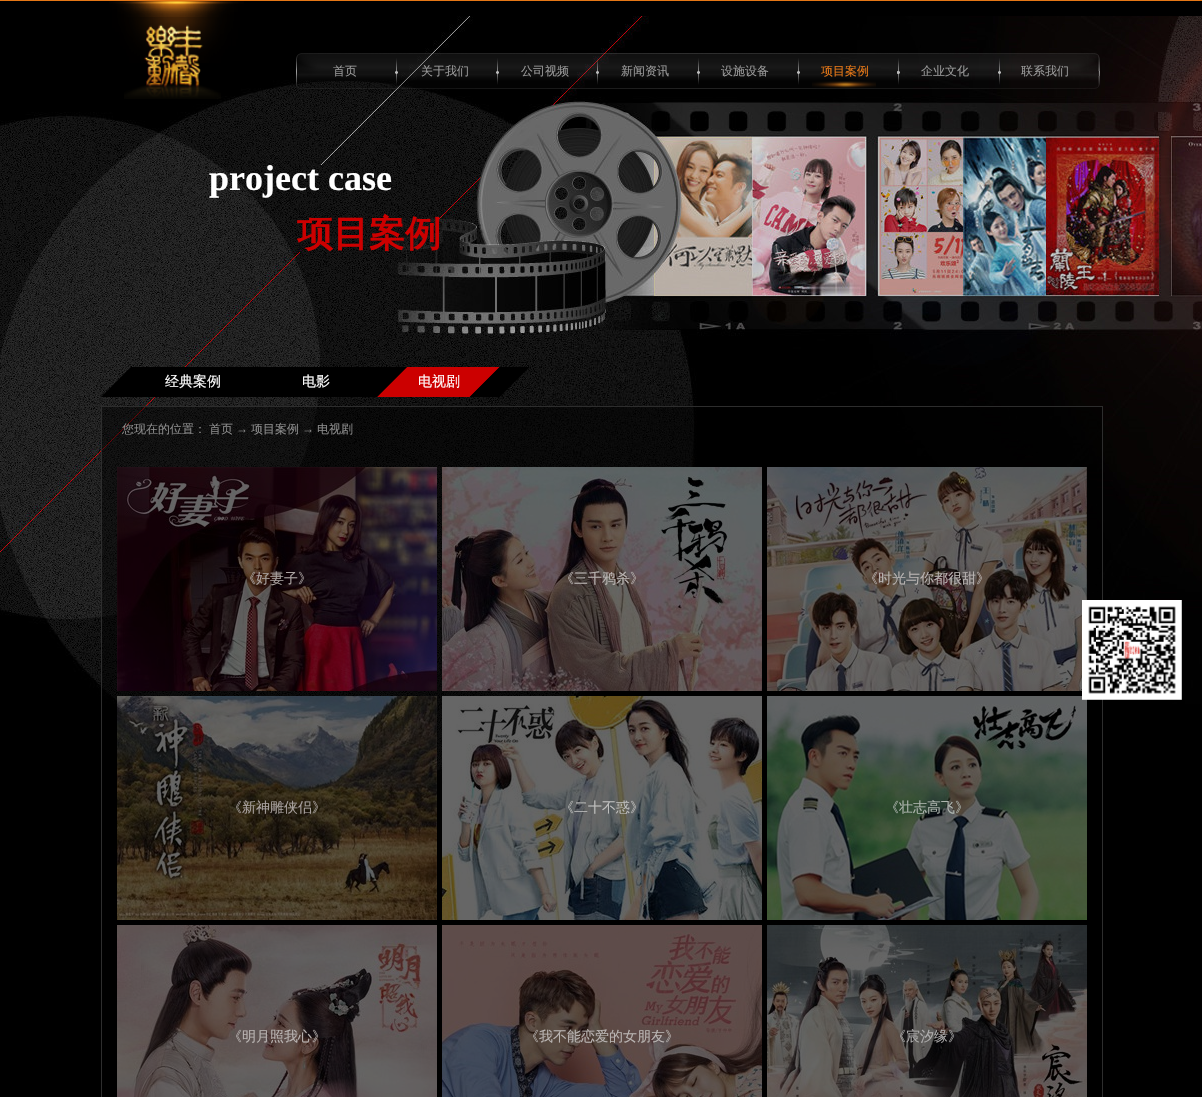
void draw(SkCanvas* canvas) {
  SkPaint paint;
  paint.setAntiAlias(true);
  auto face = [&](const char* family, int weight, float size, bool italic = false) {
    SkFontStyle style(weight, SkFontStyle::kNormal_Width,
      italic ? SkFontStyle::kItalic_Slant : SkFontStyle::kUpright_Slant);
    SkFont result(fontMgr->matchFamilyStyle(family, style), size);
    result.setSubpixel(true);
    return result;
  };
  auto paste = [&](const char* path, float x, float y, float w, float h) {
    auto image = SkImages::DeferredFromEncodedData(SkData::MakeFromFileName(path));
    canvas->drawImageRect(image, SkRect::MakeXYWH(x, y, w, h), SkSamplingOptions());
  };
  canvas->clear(0xff000000);
  paint.setColor(0xffe57716);
  canvas->drawRect(SkRect::MakeXYWH(0, 0, 1202, 1), paint);
  paste("img/5.png", 0, 16, 1202, 768);
  paste("img/1.png", 109, 1, 135, 62);
  paste("img/2.png", 124, 24, 97, 75);
  paste("img/3.png", 296, 53, 804, 38);
  paste("img/4.png", 812, 81, 64, 7);
  paste("img/6.png", 101, 367, 30, 30);
  paste("img/7.png", 500, 367, 30, 30);
  paint.setColor(0xff000000);
  canvas->drawRect(SkRect::MakeXYWH(131, 367, 369, 30), paint);
  paste("img/8.png", 377, 367, 123, 30);
  paint.setColor(0x80000000);
  canvas->drawRect(SkRect::MakeXYWH(102, 407, 1000, 377), paint);
  paint.setStroke(true);
  paint.setStrokeWidth(1);
  paint.setColor(0xff2d2d2d);
  canvas->drawRect(SkRect::MakeXYWH(101.5f, 406.5f, 1001, 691), paint);
  paste("img/9.png", 117, 467, 320, 224);
  paste("img/10.png", 442, 467, 320, 224);
  paste("img/11.png", 767, 467, 320, 224);
  paste("img/12.png", 117, 696, 320, 224);
  paste("img/13.png", 442, 696, 320, 224);
  paste("img/14.png", 767, 696, 320, 224);
  paste("img/15.png", 117, 925, 320, 172);
  paste("img/16.png", 442, 925, 320, 172);
  paste("img/17.png", 767, 925, 320, 172);
  paste("img/18.png", 1082, 600, 100, 100);
  auto f0 = face("WenQuanYi Zen Hei", 500, 12);
  paint.setStroke(false);
  paint.setColor(0xff999999);
  {
    const struct { const char* s; float x, y; } items[] = {
      {"首页", 333, 75},
      {"关于我们", 421, 75},
      {"公司视频", 521, 75},
      {"新闻资讯", 621, 75},
      {"设施设备", 721, 75},
    };
    for (auto [s, x, y] : items) {
      canvas->drawString(s, x, y, f0, paint);
    }
  }
  paint.setColor(0xffe77817);
  canvas->drawString("项目案例", 821, 75, f0, paint);
  paint.setColor(0xff999999);
  canvas->drawString("企业文化", 921, 75, f0, paint);
  canvas->drawString("联系我们", 1021, 75, f0, paint);
  auto f1 = face("Liberation Serif", 700, 36);
  paint.setColor(0xffffffff);
  canvas->drawString("project case", 209, 190, f1, paint);
  auto f2 = face("WenQuanYi Zen Hei", 700, 36);
  paint.setColor(0xffcc0000);
  canvas->drawString("项目案例", 297, 246, f2, paint);
  auto f3 = face("WenQuanYi Zen Hei", 500, 14);
  paint.setColor(0xffffffff);
  {
    const struct { const char* s; float x, y; } items[] = {
      {"经典案例", 165, 386},
      {"电影", 302, 386},
      {"电视剧", 418, 386},
    };
    for (auto [s, x, y] : items) {
      canvas->drawString(s, x, y, f3, paint);
    }
  }
  paint.setColor(0xff8b8b8b);
  canvas->drawString("您现在的位置：", 122, 433, f0, paint);
  canvas->drawString("首页", 209, 433, f0, paint);
  auto f4 = face("Liberation Serif", 400, 12);
  canvas->drawString("→", 236, 433, f4, paint);
  canvas->drawString("项目案例", 251, 433, f0, paint);
  canvas->drawString("→", 302, 433, f4, paint);
  canvas->drawString("电视剧", 317, 433, f0, paint);
  paint.setColor(0xffaaa3a1);
  canvas->drawString("《好妻子》", 242, 583, f3, paint);
  paint.setColor(0xffb9b4b2);
  canvas->drawString("《三千鸦杀》", 560, 583, f3, paint);
  canvas->drawString("《时光与你都很甜》", 864, 583, f3, paint);
  paint.setColor(0xffaaa3a1);
  canvas->drawString("《新神雕侠侣》", 228, 812, f3, paint);
  paint.setColor(0xffbfbfbe);
  canvas->drawString("《二十不惑》", 560, 812, f3, paint);
  paint.setColor(0xffaeb5ae);
  canvas->drawString("《壮志高飞》", 885, 812, f3, paint);
  paint.setColor(0xffb9b4b2);
  canvas->drawString("《明月照我心》", 228, 1041, f3, paint);
  canvas->drawString("《我不能恋爱的女朋友》", 525, 1041, f3, paint);
  paint.setColor(0xffaeadad);
  canvas->drawString("《宸汐缘》", 892, 1041, f3, paint);
}
